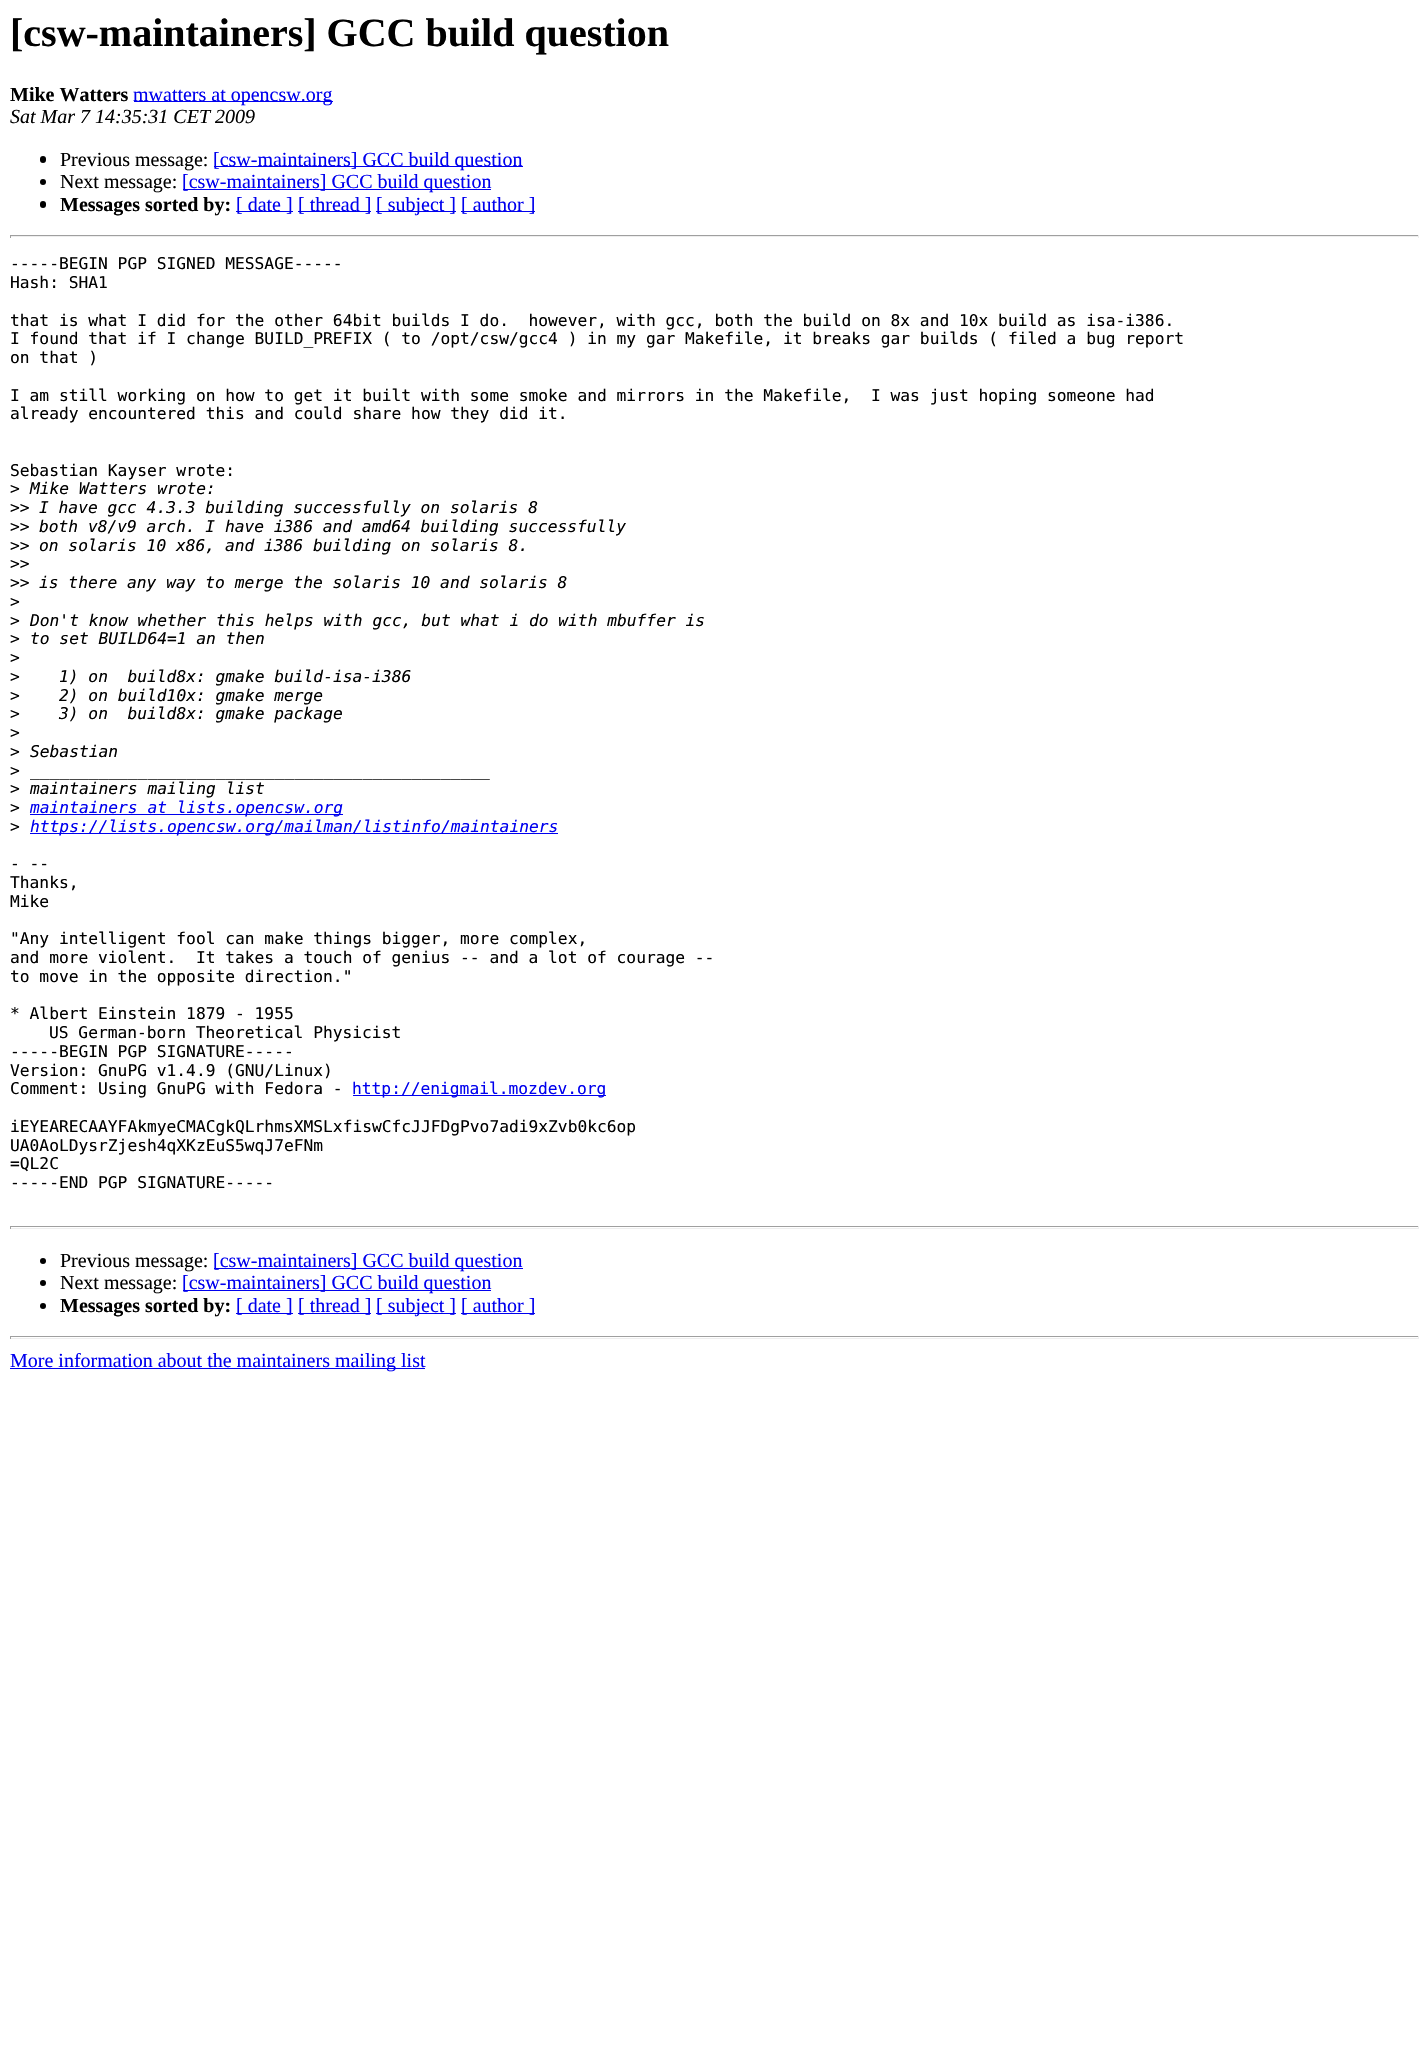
void draw(SkCanvas* canvas) {
  SkPaint paint;
  paint.setAntiAlias(true);
  auto face = [&](const char* family, int weight, float size, bool italic = false) {
    SkFontStyle style(weight, SkFontStyle::kNormal_Width,
      italic ? SkFontStyle::kItalic_Slant : SkFontStyle::kUpright_Slant);
    SkFont result(fontMgr->matchFamilyStyle(family, style), size);
    result.setSubpixel(true);
    return result;
  };
  canvas->clear(0xffffffff);
  paint.setColor(0xff0000ee);
  canvas->drawRect(SkRect::MakeXYWH(134, 101, 199, 1), paint);
  paint.setColor(0xff000000);
  canvas->drawRoundRect(SkRect::MakeXYWH(40, 156, 6, 7), 3, 3, paint);
  paint.setColor(0xff0000ee);
  canvas->drawRect(SkRect::MakeXYWH(214, 166, 309, 1), paint);
  paint.setColor(0xff000000);
  canvas->drawCircle(43, 182, 3, paint);
  paint.setColor(0xff0000ee);
  canvas->drawRect(SkRect::MakeXYWH(183, 189, 308, 1), paint);
  paint.setColor(0xff000000);
  canvas->drawRoundRect(SkRect::MakeXYWH(40, 201, 6, 7), 3, 3, paint);
  {
    const struct { float x, y, w, h; SkColor color; } items[] = {
      {236, 211, 57, 1, 0xff0000ee},
      {298, 211, 73, 1, 0xff0000ee},
      {376, 211, 80, 1, 0xff0000ee},
      {461, 211, 74, 1, 0xff0000ee},
      {10, 235, 1409, 1, 0xff9f9f9f},
      {1418, 235, 1, 3, 0xffeeeeee},
      {10, 236, 1409, 1, 0xffeeeeee},
      {10, 235, 1, 3, 0xff9f9f9f},
      {30, 814, 313, 1, 0xff0000ee},
      {30, 833, 528, 1, 0xff0000ee},
      {353, 1095, 253, 1, 0xff0000ee},
      {10, 1226, 1409, 1, 0xff9f9f9f},
      {1418, 1226, 1, 3, 0xffeeeeee},
      {10, 1228, 1409, 1, 0xffeeeeee},
      {10, 1226, 1, 3, 0xff9f9f9f},
    };
    for (auto [x, y, w, h, color] : items) {
      paint.setColor(color);
      canvas->drawRect(SkRect::MakeXYWH(x, y, w, h), paint);
    }
  }
  paint.setColor(0xff000000);
  canvas->drawCircle(43, 1261, 3, paint);
  paint.setColor(0xff0000ee);
  canvas->drawRect(SkRect::MakeXYWH(214, 1268, 309, 1), paint);
  paint.setColor(0xff000000);
  canvas->drawCircle(43, 1283, 3, paint);
  paint.setColor(0xff0000ee);
  canvas->drawRect(SkRect::MakeXYWH(183, 1290, 308, 1), paint);
  paint.setColor(0xff000000);
  canvas->drawCircle(43, 1306, 3, paint);
  {
    const struct { float x, y, w, h; SkColor color; } items[] = {
      {236, 1313, 57, 1, 0xff0000ee},
      {298, 1313, 73, 1, 0xff0000ee},
      {376, 1313, 80, 1, 0xff0000ee},
      {461, 1313, 74, 1, 0xff0000ee},
      {10, 1336, 1409, 1, 0xff9f9f9f},
      {1418, 1336, 1, 3, 0xffeeeeee},
      {10, 1338, 1409, 1, 0xffeeeeee},
      {10, 1336, 1, 3, 0xff9f9f9f},
      {10, 1368, 415, 1, 0xff0000ee},
    };
    for (auto [x, y, w, h, color] : items) {
      paint.setColor(color);
      canvas->drawRect(SkRect::MakeXYWH(x, y, w, h), paint);
    }
  }
  auto f0 = face("Liberation Serif", 700, 40);
  paint.setColor(0xff000000);
  canvas->drawString("[csw-maintainers] GCC build question", 10, 46, f0, paint);
  auto f1 = face("Liberation Serif", 700, 20);
  canvas->drawString("Mike Watters", 10, 101, f1, paint);
  auto f2 = face("Liberation Serif", 400, 20);
  paint.setColor(0xff0000ee);
  canvas->drawString("mwatters at opencsw.org", 133, 101, f2, paint);
  auto f3 = face("Liberation Serif", 400, 20, true);
  paint.setColor(0xff000000);
  canvas->drawString("Sat Mar 7 14:35:31 CET 2009", 10, 123, f3, paint);
  canvas->drawString("Previous message:", 60, 166, f2, paint);
  paint.setColor(0xff0000ee);
  canvas->drawString("[csw-maintainers] GCC build question", 213, 166, f2, paint);
  paint.setColor(0xff000000);
  canvas->drawString("Next message:", 60, 188, f2, paint);
  paint.setColor(0xff0000ee);
  canvas->drawString("[csw-maintainers] GCC build question", 182, 188, f2, paint);
  paint.setColor(0xff000000);
  canvas->drawString("Messages sorted by:", 60, 211, f1, paint);
  paint.setColor(0xff0000ee);
  {
    const struct { const char* s; float x, y; } items[] = {
      {"[ date ]", 236, 211},
      {"[ thread ]", 298, 211},
      {"[ subject ]", 376, 211},
      {"[ author ]", 461, 211},
    };
    for (auto [s, x, y] : items) {
      canvas->drawString(s, x, y, f2, paint);
    }
  }
  auto f4 = face("DejaVu Sans Mono", 400, 16.25f);
  paint.setColor(0xff000000);
  {
    const struct { const char* s; float x, y; } items[] = {
      {"-----BEGIN PGP SIGNED MESSAGE-----", 10, 269},
      {"Hash: SHA1", 10, 288},
      {"that is what I did for the other 64bit builds I do.  however, with gcc, both the build on 8x and 10x build as isa-i386.", 10, 326},
      {"I found that if I change BUILD_PREFIX ( to /opt/csw/gcc4 ) in my gar Makefile, it breaks gar builds ( filed a bug report", 10, 344},
      {"on that )", 10, 363},
      {"I am still working on how to get it built with some smoke and mirrors in the Makefile,  I was just hoping someone had", 10, 401},
      {"already encountered this and could share how they did it.", 10, 419},
      {"Sebastian Kayser wrote:", 10, 476},
      {">", 10, 494},
    };
    for (auto [s, x, y] : items) {
      canvas->drawString(s, x, y, f4, paint);
    }
  }
  auto f5 = face("DejaVu Sans Mono", 400, 16.25f, true);
  canvas->drawString("Mike Watters wrote:", 30, 494, f5, paint);
  canvas->drawString(">>", 10, 513, f4, paint);
  canvas->drawString("I have gcc 4.3.3 building successfully on solaris 8", 39, 513, f5, paint);
  canvas->drawString(">>", 10, 532, f4, paint);
  canvas->drawString("both v8/v9 arch. I have i386 and amd64 building successfully", 39, 532, f5, paint);
  canvas->drawString(">>", 10, 551, f4, paint);
  canvas->drawString("on solaris 10 x86, and i386 building on solaris 8.", 39, 551, f5, paint);
  canvas->drawString(">>", 10, 569, f4, paint);
  canvas->drawString(">>", 10, 588, f4, paint);
  canvas->drawString("is there any way to merge the solaris 10 and solaris 8", 39, 588, f5, paint);
  canvas->drawString(">", 10, 607, f4, paint);
  canvas->drawString(">", 10, 626, f4, paint);
  canvas->drawString("Don't know whether this helps with gcc, but what i do with mbuffer is", 30, 626, f5, paint);
  canvas->drawString(">", 10, 644, f4, paint);
  canvas->drawString("to set BUILD64=1 an then", 30, 644, f5, paint);
  canvas->drawString(">", 10, 663, f4, paint);
  canvas->drawString(">", 10, 682, f4, paint);
  canvas->drawString("1) on  build8x: gmake build-isa-i386", 59, 682, f5, paint);
  canvas->drawString(">", 10, 701, f4, paint);
  canvas->drawString("2) on build10x: gmake merge", 59, 701, f5, paint);
  canvas->drawString(">", 10, 719, f4, paint);
  canvas->drawString("3) on  build8x: gmake package", 59, 719, f5, paint);
  canvas->drawString(">", 10, 738, f4, paint);
  canvas->drawString(">", 10, 757, f4, paint);
  canvas->drawString("Sebastian", 30, 757, f5, paint);
  canvas->drawString(">", 10, 776, f4, paint);
  canvas->drawString("_______________________________________________", 30, 776, f5, paint);
  canvas->drawString(">", 10, 794, f4, paint);
  canvas->drawString("maintainers mailing list", 30, 794, f5, paint);
  canvas->drawString(">", 10, 813, f4, paint);
  paint.setColor(0xff0000ee);
  canvas->drawString("maintainers at lists.opencsw.org", 30, 813, f5, paint);
  paint.setColor(0xff000000);
  canvas->drawString(">", 10, 832, f4, paint);
  paint.setColor(0xff0000ee);
  canvas->drawString("https://lists.opencsw.org/mailman/listinfo/maintainers", 30, 832, f5, paint);
  paint.setColor(0xff000000);
  {
    const struct { const char* s; float x, y; } items[] = {
      {"- --", 10, 869},
      {"Thanks,", 10, 888},
      {"Mike", 10, 907},
      {"\"Any intelligent fool can make things bigger, more complex,", 10, 944},
      {"and more violent.  It takes a touch of genius -- and a lot of courage --", 10, 963},
      {"to move in the opposite direction.\"", 10, 982},
      {"* Albert Einstein 1879 - 1955", 10, 1019},
      {"US German-born Theoretical Physicist", 49, 1038},
      {"-----BEGIN PGP SIGNATURE-----", 10, 1057},
      {"Version: GnuPG v1.4.9 (GNU/Linux)", 10, 1076},
      {"Comment: Using GnuPG with Fedora -", 10, 1094},
    };
    for (auto [s, x, y] : items) {
      canvas->drawString(s, x, y, f4, paint);
    }
  }
  paint.setColor(0xff0000ee);
  canvas->drawString("http://enigmail.mozdev.org", 352, 1094, f4, paint);
  paint.setColor(0xff000000);
  {
    const struct { const char* s; float x, y; } items[] = {
      {"iEYEARECAAYFAkmyeCMACgkQLrhmsXMSLxfiswCfcJJFDgPvo7adi9xZvb0kc6op", 10, 1132},
      {"UA0AoLDysrZjesh4qXKzEuS5wqJ7eFNm", 10, 1151},
      {"=QL2C", 10, 1169},
      {"-----END PGP SIGNATURE-----", 10, 1188},
    };
    for (auto [s, x, y] : items) {
      canvas->drawString(s, x, y, f4, paint);
    }
  }
  canvas->drawString("Previous message:", 60, 1267, f2, paint);
  paint.setColor(0xff0000ee);
  canvas->drawString("[csw-maintainers] GCC build question", 213, 1267, f2, paint);
  paint.setColor(0xff000000);
  canvas->drawString("Next message:", 60, 1289, f2, paint);
  paint.setColor(0xff0000ee);
  canvas->drawString("[csw-maintainers] GCC build question", 182, 1289, f2, paint);
  paint.setColor(0xff000000);
  canvas->drawString("Messages sorted by:", 60, 1312, f1, paint);
  paint.setColor(0xff0000ee);
  {
    const struct { const char* s; float x, y; } items[] = {
      {"[ date ]", 236, 1312},
      {"[ thread ]", 298, 1312},
      {"[ subject ]", 376, 1312},
      {"[ author ]", 461, 1312},
      {"More information about the maintainers mailing list", 10, 1367},
    };
    for (auto [s, x, y] : items) {
      canvas->drawString(s, x, y, f2, paint);
    }
  }
}
